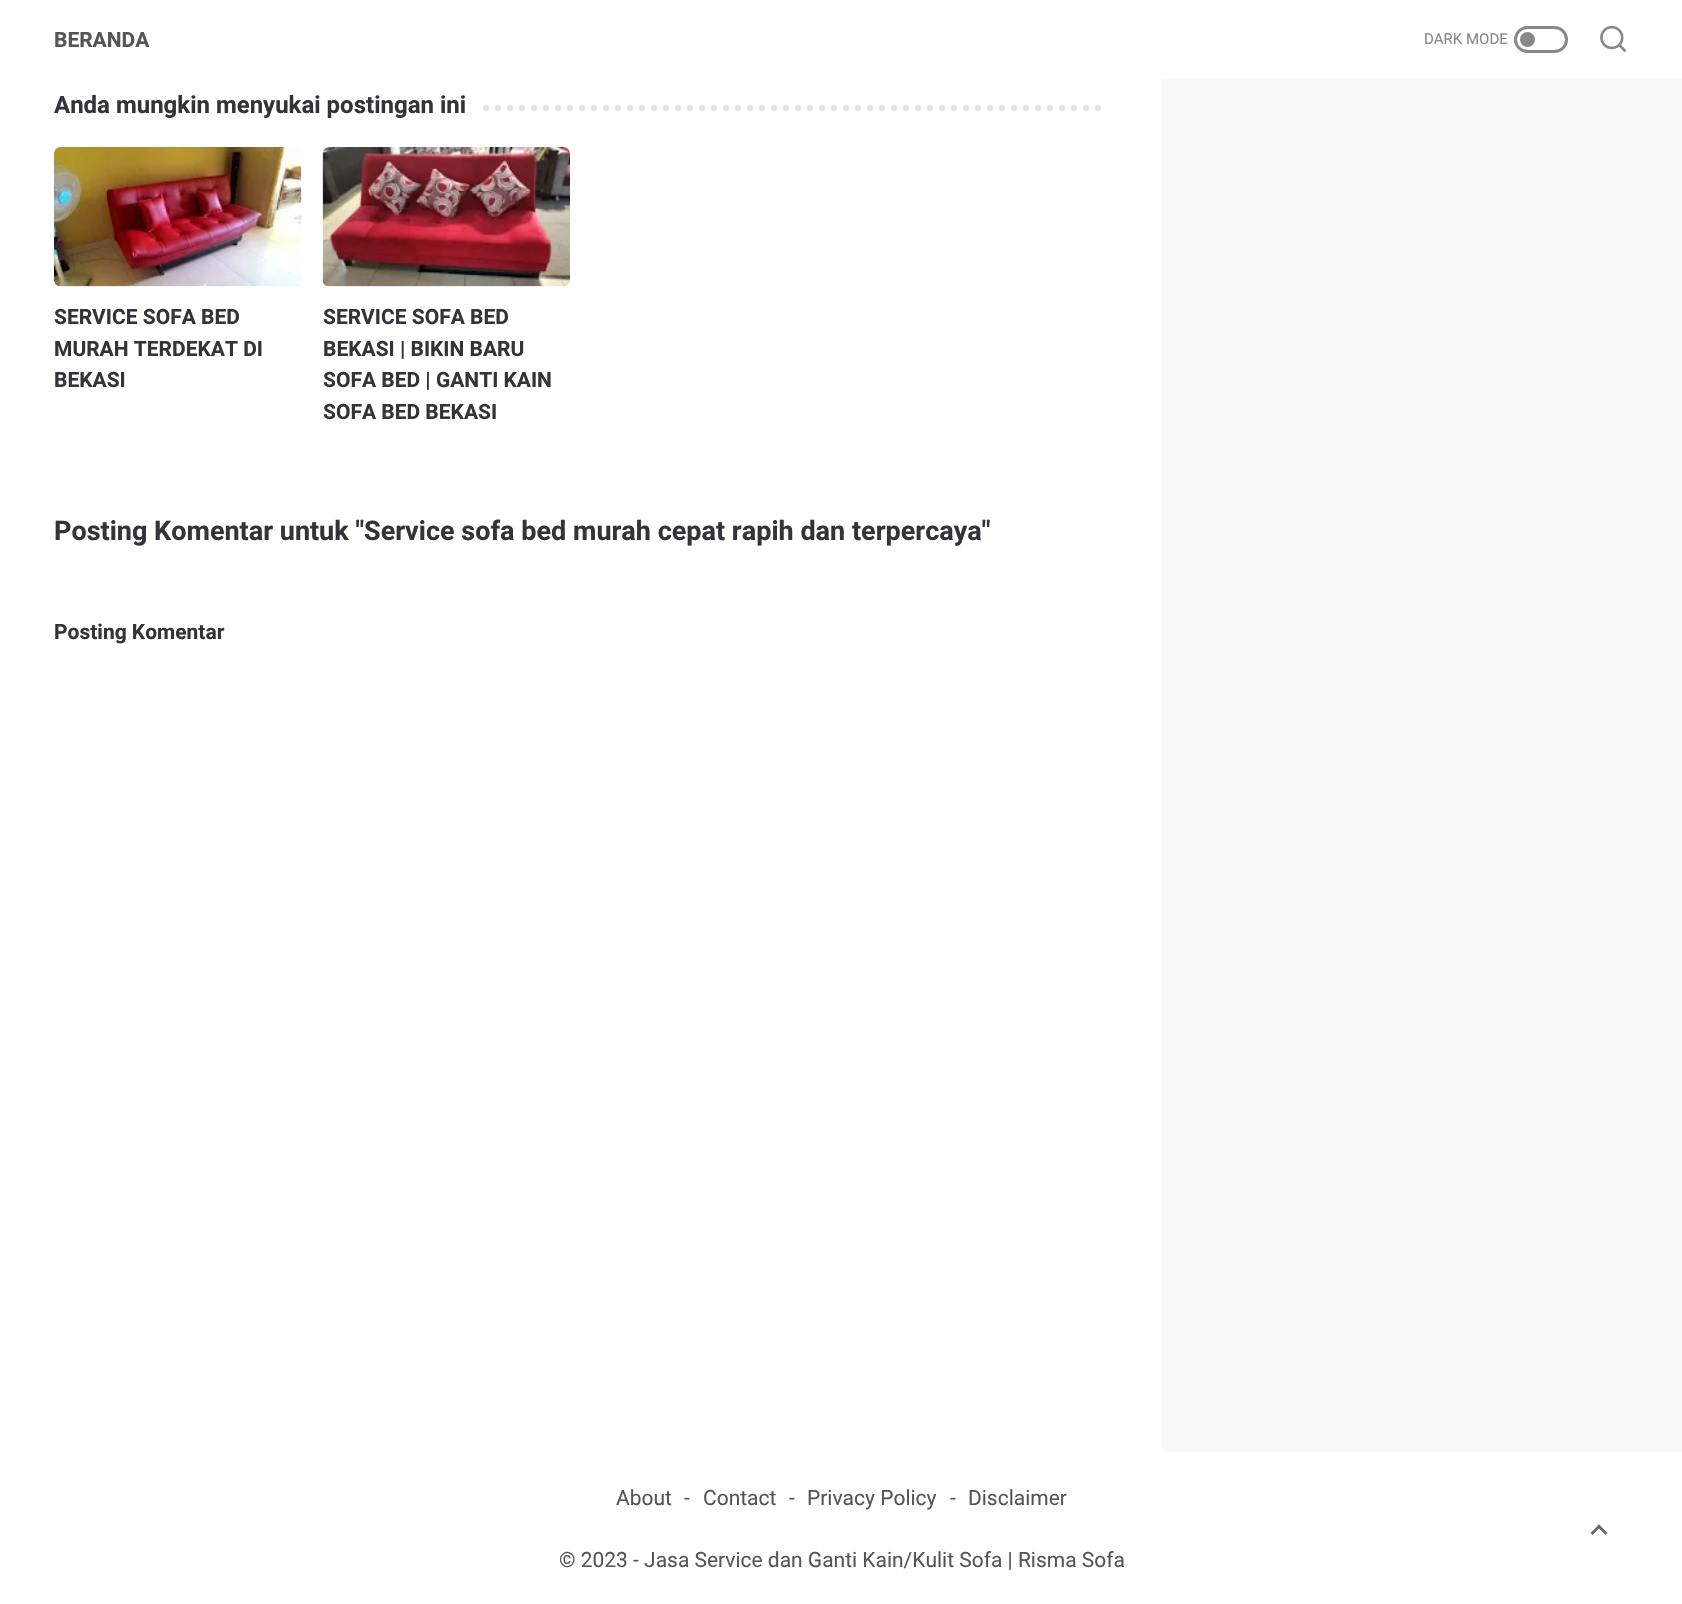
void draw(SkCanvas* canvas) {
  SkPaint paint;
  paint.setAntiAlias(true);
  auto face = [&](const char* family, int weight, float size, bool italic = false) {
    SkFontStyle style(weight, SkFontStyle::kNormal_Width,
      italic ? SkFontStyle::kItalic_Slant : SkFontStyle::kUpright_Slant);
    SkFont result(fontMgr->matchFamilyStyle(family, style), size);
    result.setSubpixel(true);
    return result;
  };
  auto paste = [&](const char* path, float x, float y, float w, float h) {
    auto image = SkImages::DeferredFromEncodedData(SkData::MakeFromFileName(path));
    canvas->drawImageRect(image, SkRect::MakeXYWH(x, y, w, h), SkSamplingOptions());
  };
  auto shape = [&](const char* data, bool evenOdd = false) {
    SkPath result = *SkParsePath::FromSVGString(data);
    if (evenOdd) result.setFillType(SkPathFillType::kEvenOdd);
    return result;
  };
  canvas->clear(0xffffffff);
  paint.setStroke(true);
  paint.setStrokeWidth(3);
  paint.setColor(0xff888888);
  canvas->drawRoundRect(SkRect::MakeXYWH(1515.5f, 27.5f, 51, 24), 12, 12, paint);
  paint.setStroke(false);
  canvas->drawCircle(1527.5f, 39.5f, 7.5f, paint);
  paste("img/1.png", 1600, 25, 27, 28);
  canvas->save();
  canvas->clipRect(SkRect::MakeXYWH(54, 87, 1053, 378));
  paint.setStroke(true);
  paint.setStrokeWidth(6);
  paint.setStrokeCap(SkPaint::kRound_Cap);
  paint.setColor(0xffdfe1e2);
  paint.setPathEffect(SkDashPathEffect::Make({{0, 12}}, 0));
  canvas->drawPath(shape("M54 108H1107"), paint);
  paint.setPathEffect(nullptr);
  canvas->restore();
  paint.setStroke(false);
  paint.setColor(0xffffffff);
  canvas->drawRect(SkRect::MakeXYWH(54, 105, 423, 6), paint);
  paste("img/2.png", 54, 147, 248, 140);
  paste("img/3.png", 322, 147, 248, 140);
  paint.setColor(0xfff8fafa);
  canvas->drawRect(SkRect::MakeXYWH(1161, 78, 521, 1374), paint);
  paint.setColor(0xff666666);
  canvas->drawPath(shape("M1590.5 1533L1599 1524.5L1601 1526.5L1592.5 1535Z"), paint);
  canvas->drawPath(shape("M1597 1526.5L1599 1524.5L1607.5 1533L1605.5 1535Z"), paint);
  auto f0 = face("Roboto", 700, 21);
  paint.setColor(0xff555555);
  canvas->drawString("BERANDA", 54, 47, f0, paint);
  auto f1 = face("Roboto", 400, 15);
  paint.setColor(0xff888888);
  canvas->drawString("DARK MODE", 1424, 44, f1, paint);
  auto f2 = face("Roboto", 700, 24);
  paint.setColor(0xff31353a);
  canvas->drawString("Anda mungkin menyukai postingan ini", 54, 113, f2, paint);
  {
    const struct { const char* s; float x, y; } items[] = {
      {"SERVICE SOFA BED", 54, 324},
      {"MURAH TERDEKAT DI", 54, 356},
      {"BEKASI", 54, 387},
      {"SERVICE SOFA BED", 323, 324},
      {"BEKASI | BIKIN BARU", 323, 356},
      {"SOFA BED | GANTI KAIN", 323, 387},
      {"SOFA BED BEKASI", 323, 419},
    };
    for (auto [s, x, y] : items) {
      canvas->drawString(s, x, y, f0, paint);
    }
  }
  auto f3 = face("Roboto", 700, 27);
  canvas->drawString("Posting Komentar untuk \"Service sofa bed murah cepat rapih dan terpercaya\"", 54, 540, f3, paint);
  canvas->drawString("Posting Komentar", 54, 639, f0, paint);
  auto f4 = face("Roboto", 400, 21);
  paint.setColor(0xff555555);
  {
    const struct { const char* s; float x, y; } items[] = {
      {"About", 616, 1505},
      {"-", 684, 1505},
      {"Contact", 703, 1505},
      {"-", 789, 1505},
      {"Privacy Policy", 807, 1505},
      {"-", 950, 1505},
      {"Disclaimer", 968, 1505},
      {"© 2023 - Jasa Service dan Ganti Kain/Kulit Sofa | Risma Sofa", 559, 1567},
    };
    for (auto [s, x, y] : items) {
      canvas->drawString(s, x, y, f4, paint);
    }
  }
}
